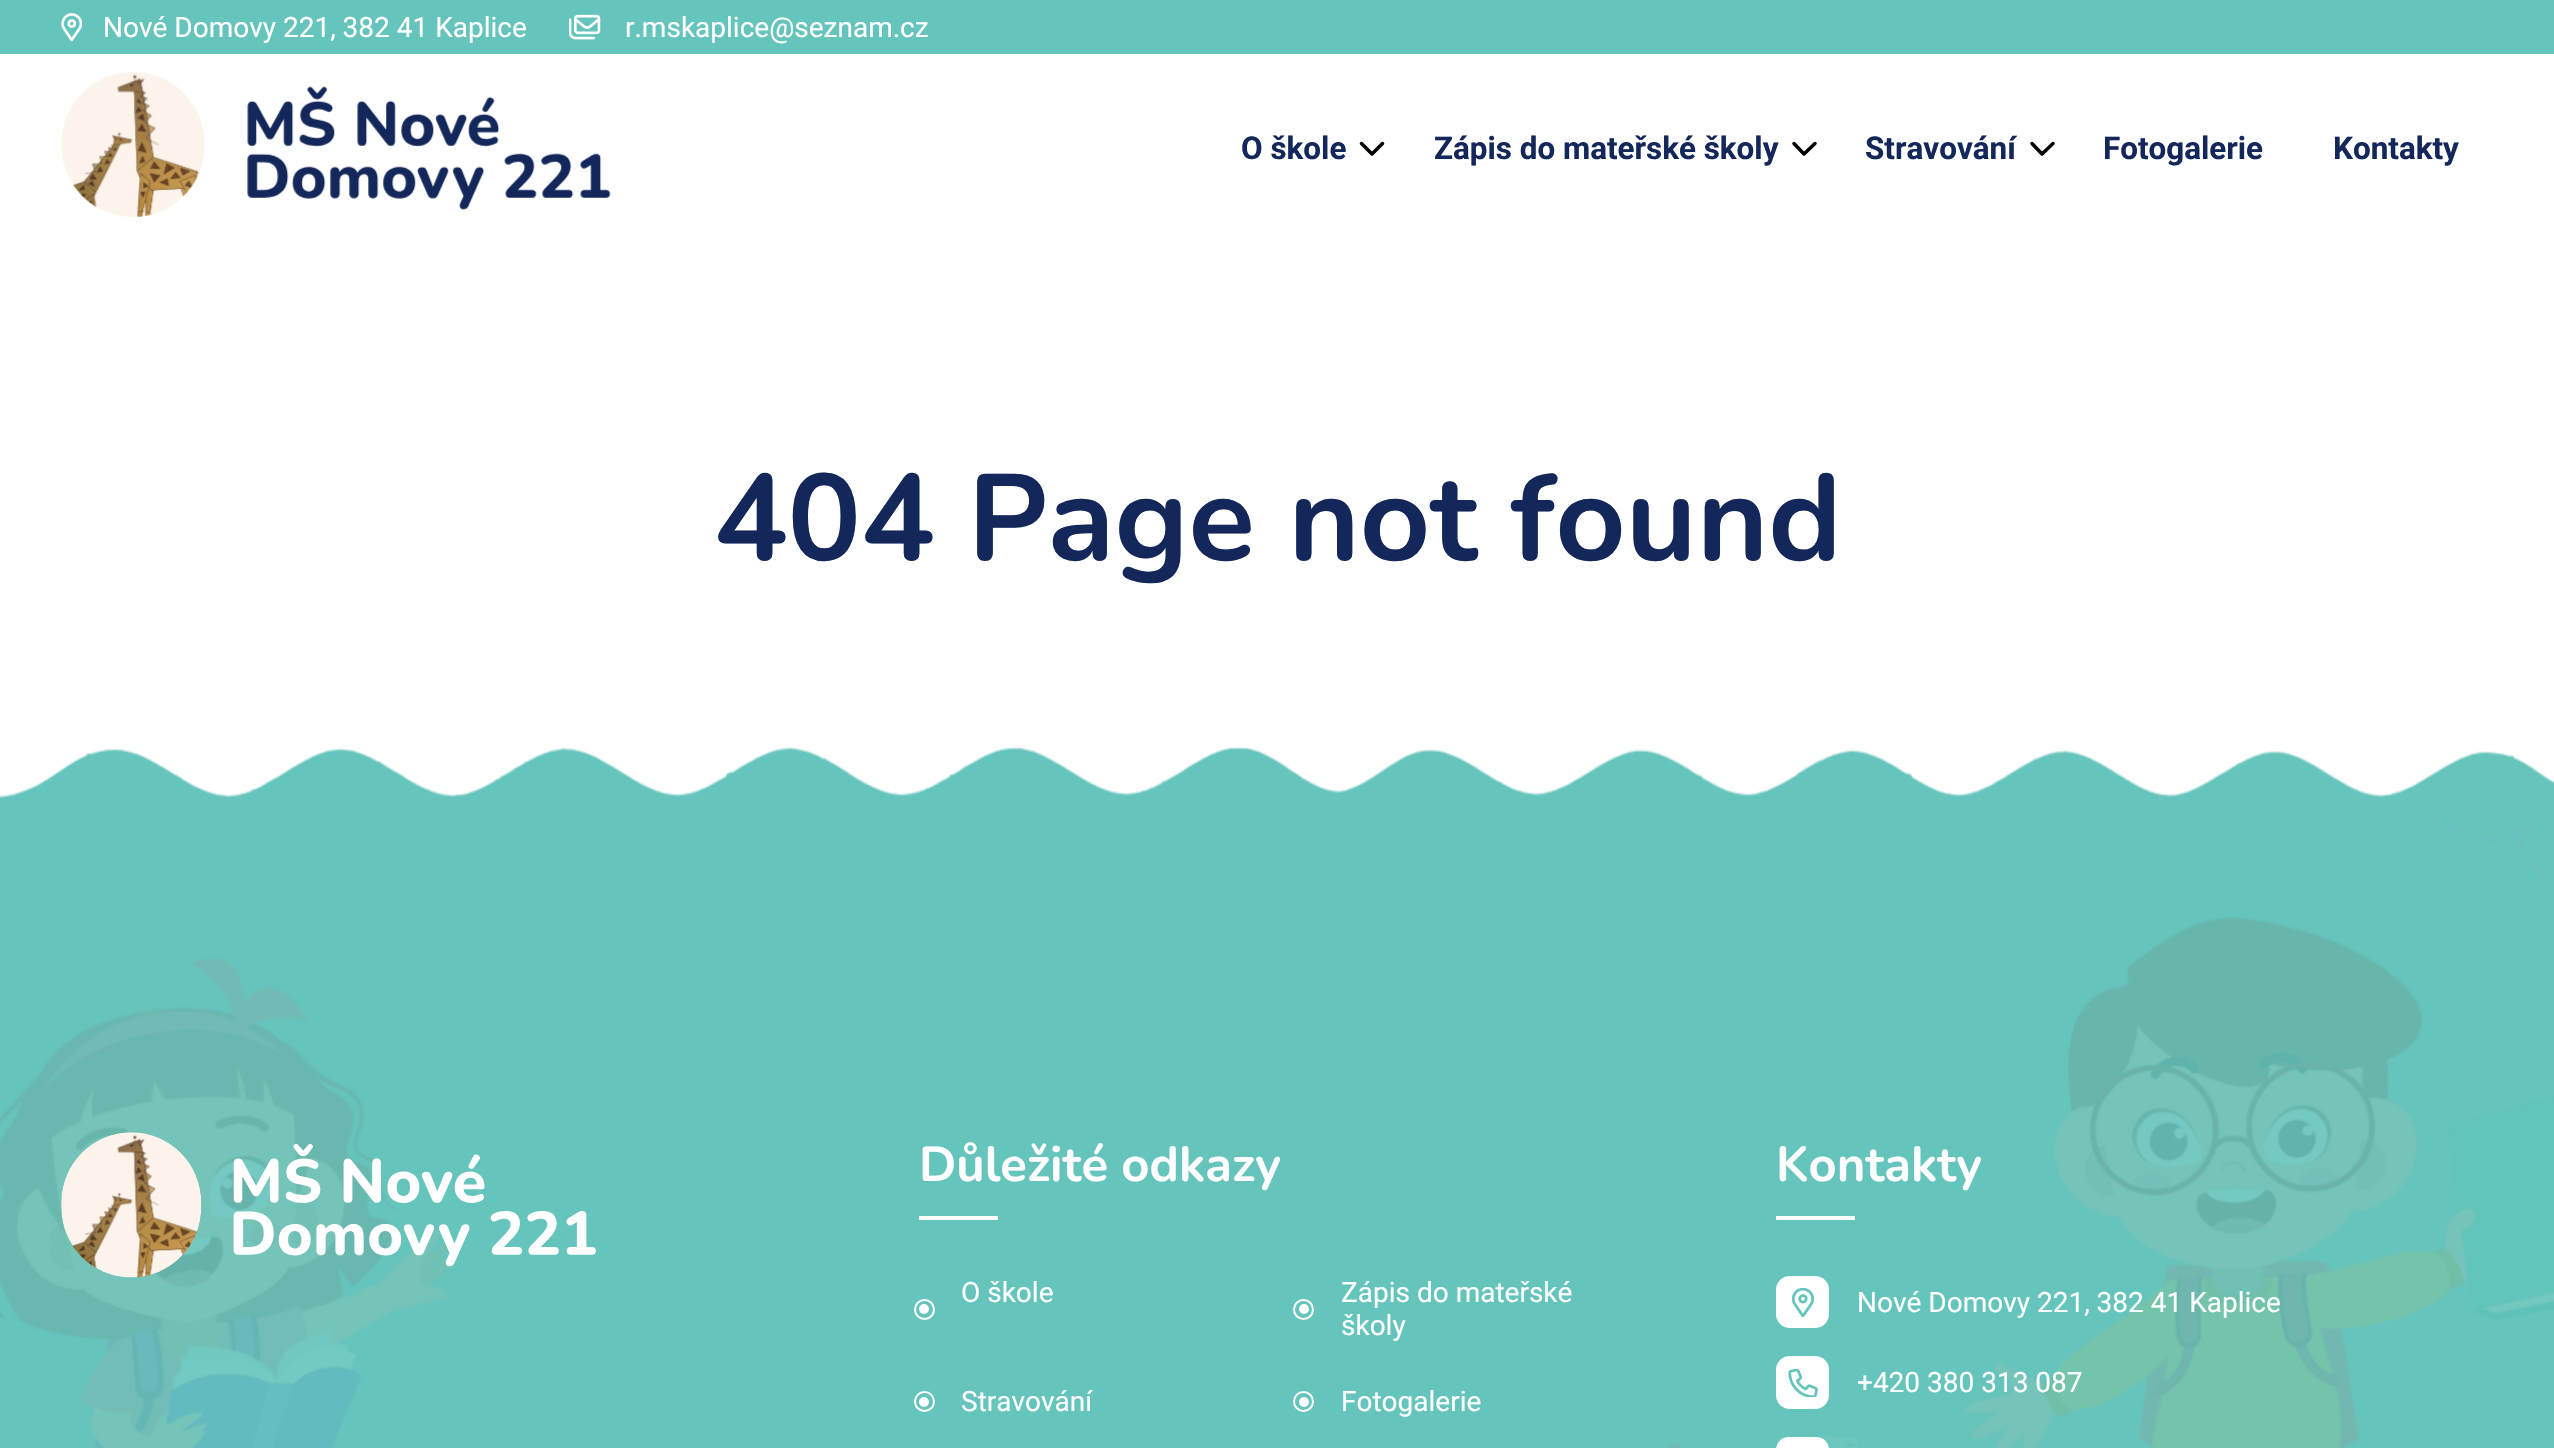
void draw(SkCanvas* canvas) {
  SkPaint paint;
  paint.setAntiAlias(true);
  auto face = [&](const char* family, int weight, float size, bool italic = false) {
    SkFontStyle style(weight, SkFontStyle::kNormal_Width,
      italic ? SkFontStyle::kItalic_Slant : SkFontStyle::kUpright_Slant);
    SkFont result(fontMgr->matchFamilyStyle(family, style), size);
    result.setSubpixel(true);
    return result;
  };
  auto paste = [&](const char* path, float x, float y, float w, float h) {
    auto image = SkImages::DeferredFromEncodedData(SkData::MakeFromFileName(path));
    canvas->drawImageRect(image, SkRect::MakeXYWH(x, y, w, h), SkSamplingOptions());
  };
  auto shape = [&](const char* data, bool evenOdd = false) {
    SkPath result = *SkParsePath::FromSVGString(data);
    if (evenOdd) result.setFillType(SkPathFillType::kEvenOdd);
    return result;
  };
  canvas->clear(0xffffffff);
  paint.setColor(0xff65c4bc);
  canvas->drawRect(SkRect::MakeXYWH(0, 0, 2554, 54), paint);
  paste("img/1.png", 61, 13, 21, 28);
  paste("img/2.png", 569, 14, 32, 26);
  paste("img/3.png", 61, 72, 550, 145);
  paint.setStroke(true);
  paint.setStrokeWidth(3.5f);
  paint.setStrokeCap(SkPaint::kRound_Cap);
  paint.setStrokeJoin(SkPaint::kRound_Join);
  paint.setColor(0xff000000);
  canvas->drawPath(shape("M1361.5 143.5L1372 154L1382.5 143.5"), paint);
  canvas->drawPath(shape("M1794 143.5L1804 154L1815 143.5"), paint);
  canvas->drawPath(shape("M2032 143.5L2042 154L2053 143.5"), paint);
  paint.setStroke(false);
  paint.setColor(0xff65c4bc);
  canvas->drawRect(SkRect::MakeXYWH(0, 817, 2554, 631), paint);
  paste("img/4.png", 0, 746, 2554, 71);
  paste("img/5.png", 0, 818, 2554, 630);
  paste("img/6.png", 61, 1132, 535, 146);
  paint.setColor(0xffffffff);
  canvas->drawRect(SkRect::MakeXYWH(919, 1216, 79, 4), paint);
  canvas->drawCircle(924, 1309, 5, paint);
  paint.setStroke(true);
  paint.setStrokeWidth(2);
  paint.setStrokeCap(SkPaint::kButt_Cap);
  paint.setStrokeJoin(SkPaint::kMiter_Join);
  canvas->drawCircle(924.5f, 1309.5f, 9.5f, paint);
  paint.setStroke(false);
  canvas->drawCircle(1304, 1309, 5, paint);
  paint.setStroke(true);
  canvas->drawCircle(1303.5f, 1309.5f, 9.5f, paint);
  paint.setStroke(false);
  canvas->drawCircle(924, 1402, 5, paint);
  paint.setStroke(true);
  canvas->drawCircle(924.5f, 1401.5f, 9.5f, paint);
  paint.setStroke(false);
  canvas->drawCircle(1304, 1402, 5, paint);
  paint.setStroke(true);
  canvas->drawCircle(1303.5f, 1401.5f, 9.5f, paint);
  paint.setStroke(false);
  canvas->drawRect(SkRect::MakeXYWH(1776, 1216, 79, 4), paint);
  canvas->drawRoundRect(SkRect::MakeXYWH(1776, 1276, 53, 52), 14, 14, paint);
  paste("img/7.png", 1792, 1288, 22, 29);
  canvas->drawRoundRect(SkRect::MakeXYWH(1776, 1356, 53, 53), 14, 14, paint);
  paste("img/8.png", 1788, 1369, 30, 28);
  canvas->drawRoundRect(SkRect::MakeXYWH(1776, 1437, 53, 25), 14, 14, paint);
  auto f0 = face("Roboto", 400, 28);
  canvas->drawString("Nové Domovy 221, 382 41 Kaplice", 103, 37, f0, paint);
  canvas->drawString("r.mskaplice@seznam.cz", 625, 37, f0, paint);
  auto f1 = face("Roboto", 700, 31.4f);
  paint.setColor(0xff13275b);
  {
    const struct { const char* s; float x, y; } items[] = {
      {"O škole", 1241, 159},
      {"Zápis do mateřské školy", 1434, 159},
      {"Stravování", 1865, 159},
      {"Fotogalerie", 2103, 159},
      {"Kontakty", 2333, 159},
    };
    for (auto [s, x, y] : items) {
      canvas->drawString(s, x, y, f1, paint);
    }
  }
  auto f2 = face("Nunito", 700, 122.5f);
  canvas->drawString("404 Page not found", 714, 560, f2, paint);
  auto f3 = face("Nunito", 700, 49);
  paint.setColor(0xffffffff);
  canvas->drawString("Důležité odkazy", 919, 1181, f3, paint);
  {
    const struct { const char* s; float x, y; } items[] = {
      {"O škole", 961, 1302},
      {"Zápis do mateřské", 1341, 1302},
      {"školy", 1341, 1335},
      {"Stravování", 961, 1411},
      {"Fotogalerie", 1341, 1411},
    };
    for (auto [s, x, y] : items) {
      canvas->drawString(s, x, y, f0, paint);
    }
  }
  canvas->drawString("Kontakty", 1776, 1181, f3, paint);
  canvas->drawString("Nové Domovy 221, 382 41 Kaplice", 1857, 1312, f0, paint);
  canvas->drawString("+420 380 313 087", 1857, 1392, f0, paint);
}
